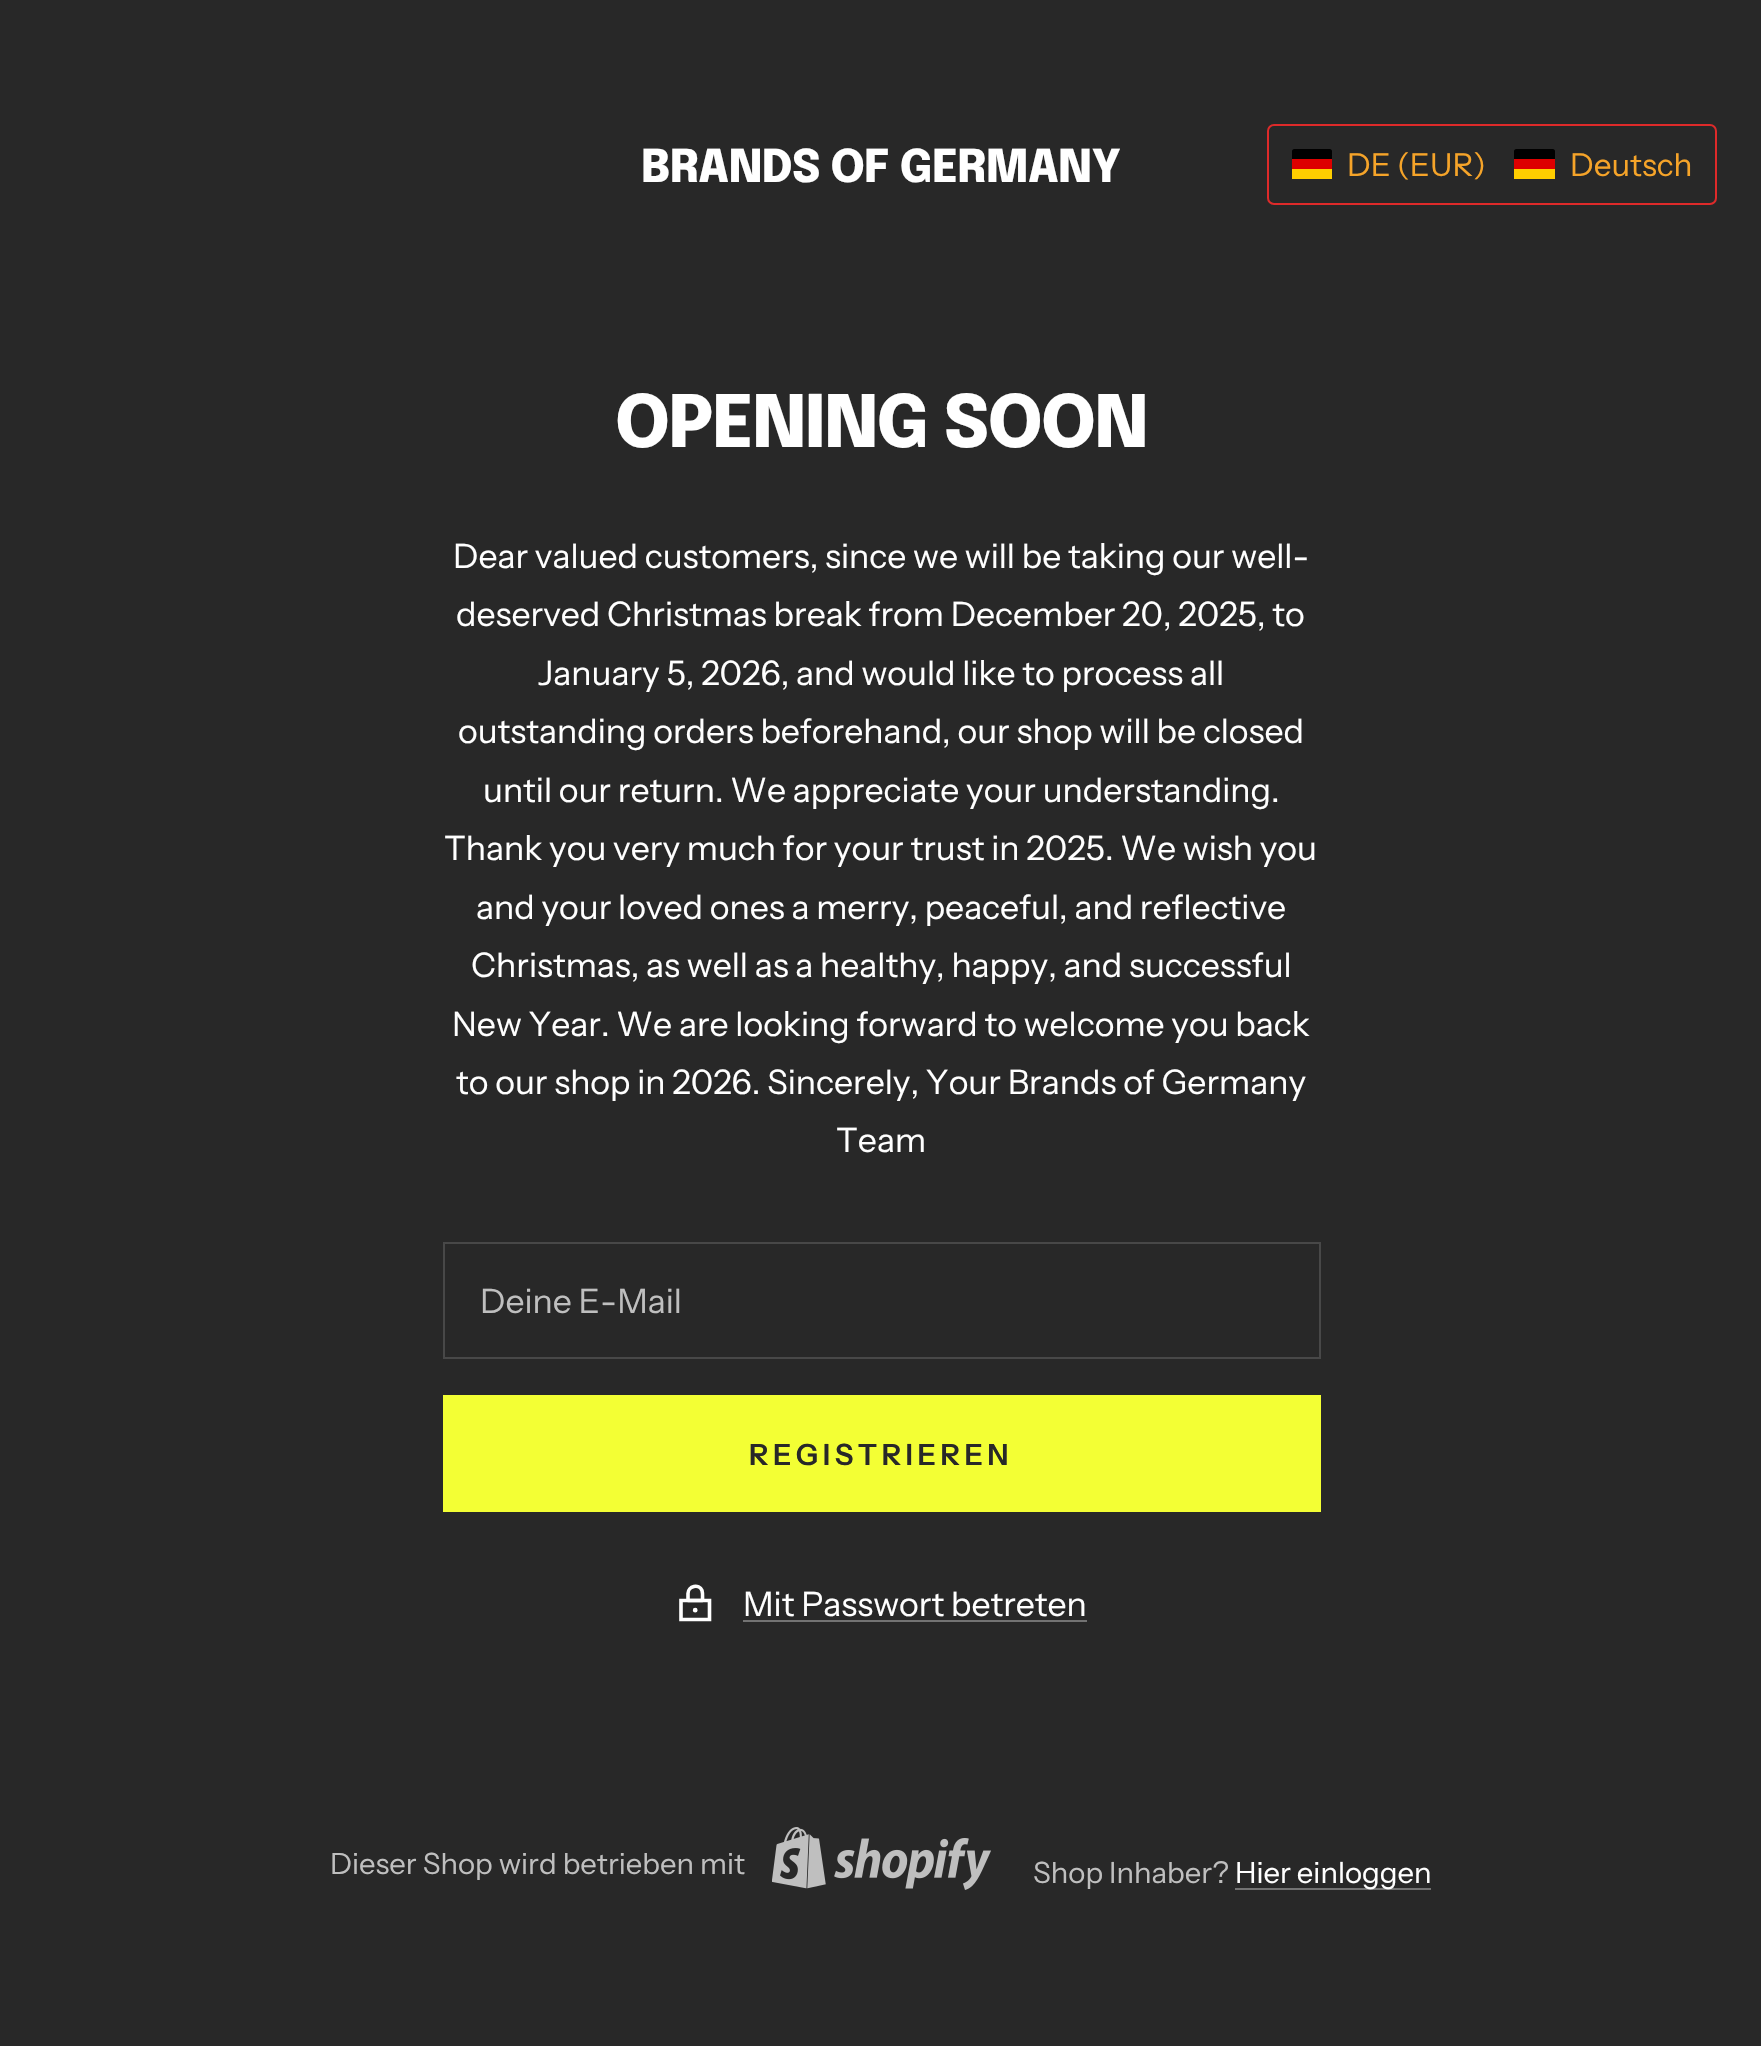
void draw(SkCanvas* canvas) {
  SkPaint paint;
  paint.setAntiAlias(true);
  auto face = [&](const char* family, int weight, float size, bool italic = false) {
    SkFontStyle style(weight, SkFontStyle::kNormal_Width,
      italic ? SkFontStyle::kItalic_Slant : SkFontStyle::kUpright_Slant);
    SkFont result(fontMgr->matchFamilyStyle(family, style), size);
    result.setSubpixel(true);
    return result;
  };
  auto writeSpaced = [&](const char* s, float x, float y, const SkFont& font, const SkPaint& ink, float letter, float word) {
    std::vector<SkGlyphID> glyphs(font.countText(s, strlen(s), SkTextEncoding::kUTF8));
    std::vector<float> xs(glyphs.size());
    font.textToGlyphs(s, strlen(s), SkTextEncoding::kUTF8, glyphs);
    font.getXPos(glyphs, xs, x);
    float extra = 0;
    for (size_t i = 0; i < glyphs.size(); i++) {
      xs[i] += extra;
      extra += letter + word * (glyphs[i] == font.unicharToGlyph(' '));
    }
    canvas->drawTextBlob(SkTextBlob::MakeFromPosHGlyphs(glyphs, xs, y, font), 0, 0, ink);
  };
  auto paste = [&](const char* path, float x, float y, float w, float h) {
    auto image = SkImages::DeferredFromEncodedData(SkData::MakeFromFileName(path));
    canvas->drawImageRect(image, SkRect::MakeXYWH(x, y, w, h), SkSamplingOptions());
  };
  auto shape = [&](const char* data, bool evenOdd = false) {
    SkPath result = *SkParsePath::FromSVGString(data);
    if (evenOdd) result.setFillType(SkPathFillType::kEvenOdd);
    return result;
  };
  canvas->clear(0xff282828);
  paint.setStroke(true);
  paint.setStrokeWidth(2);
  paint.setColor(0xff484848);
  canvas->drawRect(SkRect::MakeXYWH(444, 1243, 876, 115), paint);
  paint.setStroke(false);
  paint.setColor(0xfff3ff34);
  canvas->drawRect(SkRect::MakeXYWH(443, 1395, 878, 117), paint);
  paint.setStroke(true);
  paint.setStrokeWidth(3.6f);
  paint.setColor(0xffffffff);
  canvas->drawPath(shape("M681 1600.5V1619.5H709.5V1600.5Z"), paint);
  paint.setStrokeCap(SkPaint::kRound_Cap);
  paint.setStrokeJoin(SkPaint::kRound_Join);
  canvas->drawPath(shape("M688 1593.5C688 1586 699 1583.5 702 1590.5C703 1593.5 702.5 1597.5 702.5 1600.5H688Z"), paint);
  paint.setStrokeWidth(2.4f);
  paint.setStrokeCap(SkPaint::kButt_Cap);
  paint.setStrokeJoin(SkPaint::kMiter_Join);
  canvas->drawCircle(695.2f, 1610.2f, 1.2f, paint);
  paint.setStroke(false);
  paint.setColor(0xff737373);
  canvas->drawRect(SkRect::MakeXYWH(743, 1620, 344, 2), paint);
  paste("img/1.png", 772, 1827, 219, 63);
  canvas->drawRect(SkRect::MakeXYWH(1235, 1888, 196, 2), paint);
  paint.setStroke(true);
  paint.setStrokeWidth(2);
  paint.setColor(0xffde2a2a);
  canvas->drawRoundRect(SkRect::MakeXYWH(1268, 125, 448, 79), 6, 6, paint);
  paint.setStroke(false);
  paint.setColor(0xffffce00);
  canvas->drawRect(SkRect::MakeXYWH(1292, 169, 40, 10), paint);
  paint.setColor(0xff000000);
  canvas->drawPath(shape("M1294 149H1330C1331 149 1332 150 1332 151V159H1292V151C1292 150 1293 149 1294 149Z"), paint);
  paint.setColor(0xffdd0000);
  canvas->drawRect(SkRect::MakeXYWH(1292, 159, 40, 10), paint);
  paint.setColor(0xffffce00);
  canvas->drawRect(SkRect::MakeXYWH(1514, 169, 41, 10), paint);
  paint.setColor(0xff000000);
  canvas->drawPath(shape("M1516 149H1553C1554 149 1555 150 1555 151V159H1514V151C1514 150 1515 149 1516 149Z"), paint);
  paint.setColor(0xffdd0000);
  canvas->drawRect(SkRect::MakeXYWH(1514, 159, 41, 10), paint);
  auto f0 = face("Epilogue", 800, 45);
  paint.setColor(0xffffffff);
  writeSpaced("BRANDS OF GERMANY", 641, 182, f0, paint, -0.7f, 0);
  auto f1 = face("Epilogue", 800, 72);
  writeSpaced("OPENING SOON", 615, 447, f1, paint, -1.75f, 0);
  auto f2 = face("Instrument Sans", 400, 33.75f);
  {
    const struct { const char* s; float x, y; } items[] = {
      {"Dear valued customers, since we will be taking our well-", 453, 568},
      {"deserved Christmas break from December 20, 2025, to", 456, 626},
      {"January 5, 2026, and would like to process all", 538, 685},
      {"outstanding orders beforehand, our shop will be closed", 458, 743},
      {"until our return. We appreciate your understanding.", 483, 802},
      {"Thank you very much for your trust in 2025. We wish you", 444, 860},
      {"and your loved ones a merry, peaceful, and reflective", 476, 919},
      {"Christmas, as well as a healthy, happy, and successful", 471, 977},
      {"New Year. We are looking forward to welcome you back", 452, 1036},
      {"to our shop in 2026. Sincerely, Your Brands of Germany", 456, 1094},
      {"Team", 836, 1152},
    };
    for (auto [s, x, y] : items) {
      canvas->drawString(s, x, y, f2, paint);
    }
  }
  paint.setColor(0xffbfbfbf);
  canvas->drawString("Deine E-Mail", 480, 1313, f2, paint);
  auto f3 = face("Instrument Sans", 600, 29.25f);
  paint.setColor(0xff282828);
  writeSpaced("REGISTRIEREN", 749, 1465, f3, paint, 4.5f, 0);
  paint.setColor(0xffffffff);
  canvas->drawString("Mit Passwort betreten", 743, 1616, f2, paint);
  auto f4 = face("Instrument Sans", 400, 29.25f);
  paint.setColor(0xffbfbfbf);
  canvas->drawString("Dieser Shop wird betrieben mit", 330, 1874, f4, paint);
  canvas->drawString("Shop Inhaber?", 1033, 1883, f4, paint);
  paint.setColor(0xffffffff);
  canvas->drawString("Hier einloggen", 1235, 1883, f4, paint);
  auto f5 = face("Instrument Sans", 400, 31.5f);
  paint.setColor(0xfff6a429);
  canvas->drawString("DE (EUR)", 1347, 176, f5, paint);
  canvas->drawString("Deutsch", 1570, 176, f5, paint);
}
